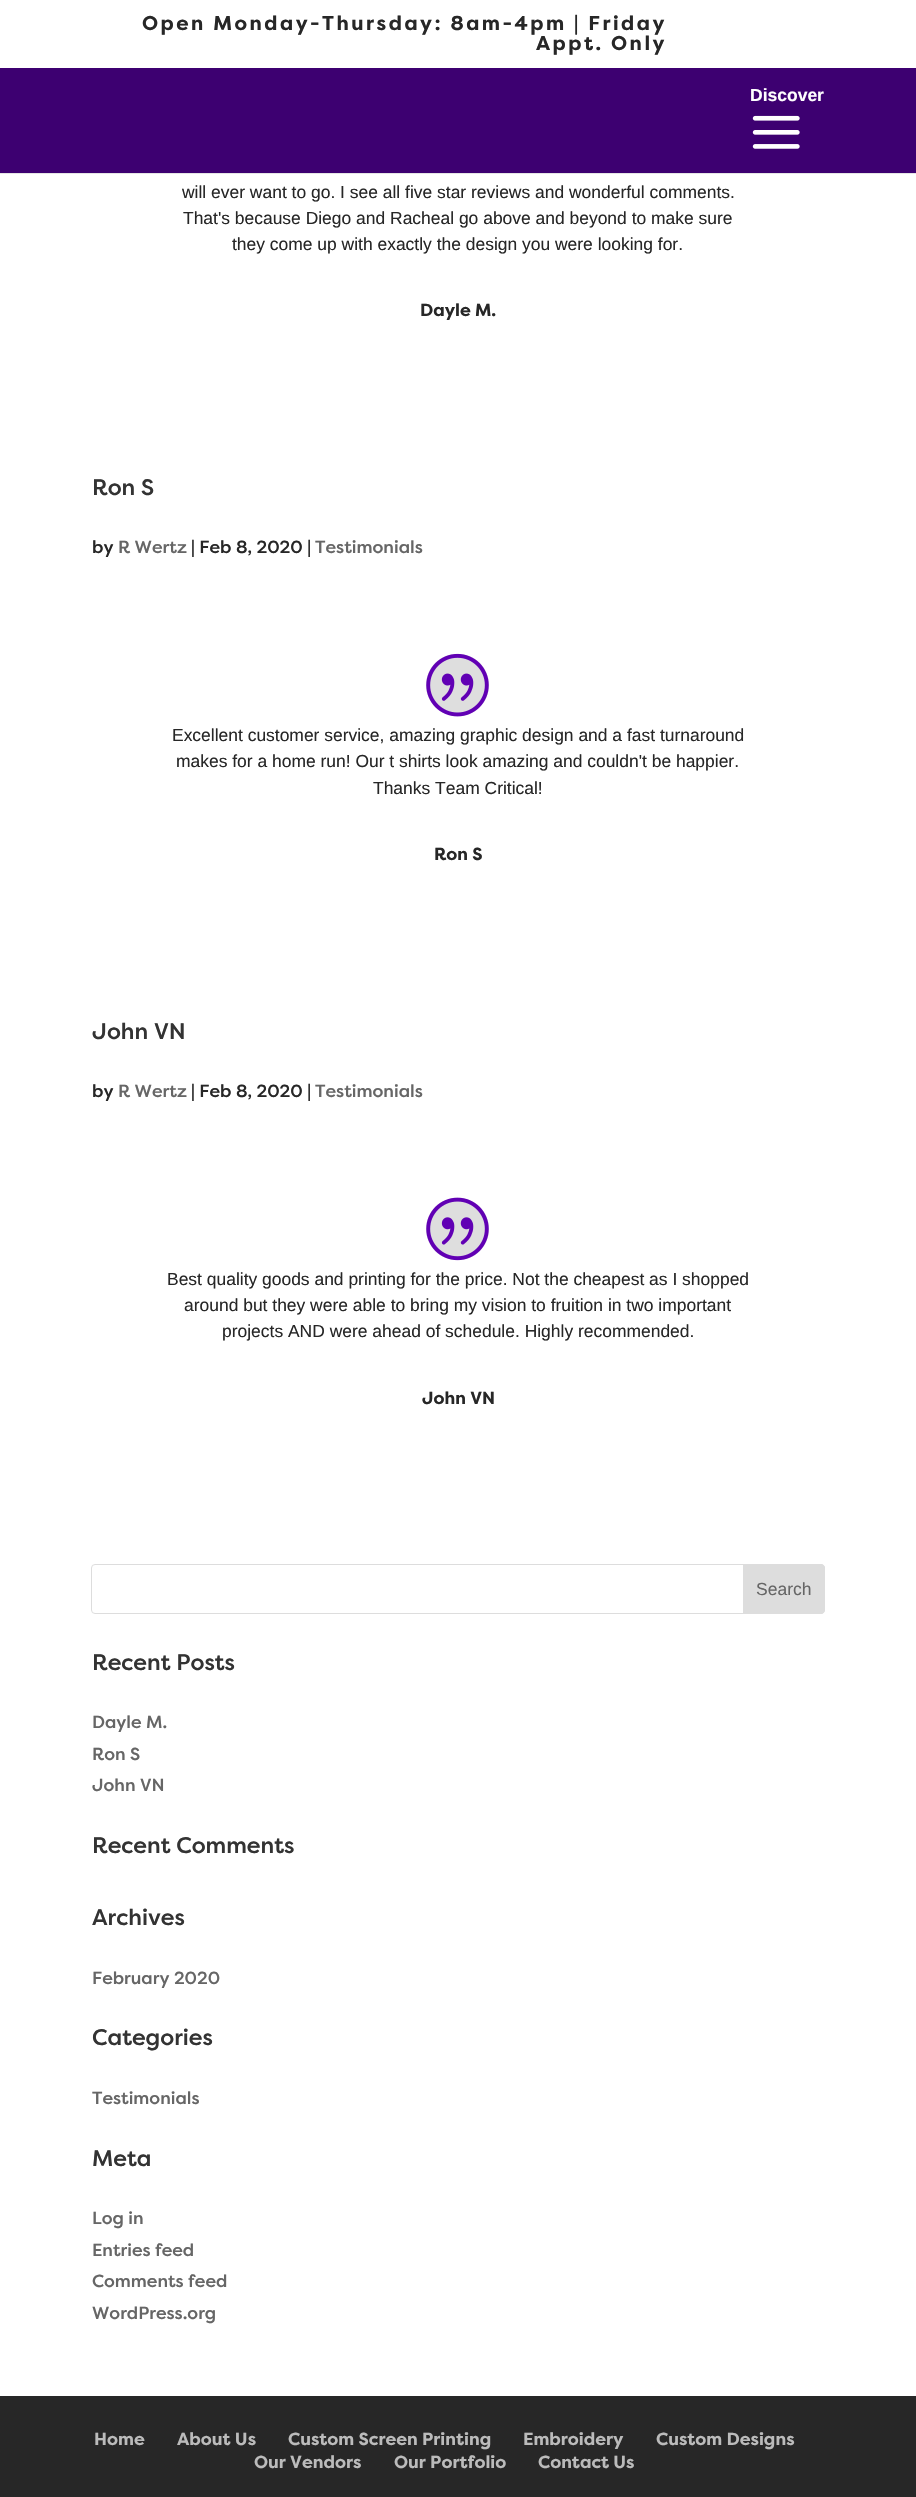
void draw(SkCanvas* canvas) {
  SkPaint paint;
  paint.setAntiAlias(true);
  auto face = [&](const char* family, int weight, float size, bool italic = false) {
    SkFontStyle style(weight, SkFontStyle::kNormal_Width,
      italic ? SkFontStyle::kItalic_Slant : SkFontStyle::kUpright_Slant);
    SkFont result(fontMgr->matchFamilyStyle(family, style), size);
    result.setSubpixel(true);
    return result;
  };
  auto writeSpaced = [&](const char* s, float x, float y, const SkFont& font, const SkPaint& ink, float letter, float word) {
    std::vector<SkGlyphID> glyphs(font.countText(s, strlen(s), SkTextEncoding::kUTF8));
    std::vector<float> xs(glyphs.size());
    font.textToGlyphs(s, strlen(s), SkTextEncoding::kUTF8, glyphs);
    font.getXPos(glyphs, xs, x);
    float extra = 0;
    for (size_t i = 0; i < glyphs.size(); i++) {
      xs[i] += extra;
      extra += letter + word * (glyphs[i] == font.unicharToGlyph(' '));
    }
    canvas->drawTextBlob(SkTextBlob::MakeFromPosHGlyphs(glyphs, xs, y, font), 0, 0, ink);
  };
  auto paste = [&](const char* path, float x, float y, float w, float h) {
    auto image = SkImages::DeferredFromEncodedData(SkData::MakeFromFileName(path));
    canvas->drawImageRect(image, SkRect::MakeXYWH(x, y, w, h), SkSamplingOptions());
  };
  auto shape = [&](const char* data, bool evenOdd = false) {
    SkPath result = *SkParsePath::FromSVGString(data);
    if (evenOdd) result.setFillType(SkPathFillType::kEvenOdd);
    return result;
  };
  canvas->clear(0xffffffff);
  paint.setColor(0x1a000000);
  canvas->drawRect(SkRect::MakeXYWH(0, 173, 916, 1), paint);
  paint.setColor(0xff3d0071);
  canvas->drawRect(SkRect::MakeXYWH(0, 68, 916, 105), paint);
  paste("img/1.png", 752, 115, 48, 34);
  paint.setColor(0xffdedede);
  canvas->drawRoundRect(SkRect::MakeXYWH(426, 654, 63, 62), 31, 31, paint);
  paste("img/2.png", 426, 653, 63, 64);
  canvas->drawRoundRect(SkRect::MakeXYWH(426, 1198, 63, 62), 31, 31, paint);
  paste("img/3.png", 426, 1197, 63, 64);
  paint.setStroke(true);
  paint.setStrokeWidth(1);
  paint.setColor(0xffdddddd);
  canvas->drawRoundRect(SkRect::MakeXYWH(91.5f, 1564.5f, 733, 49), 3.5f, 3.5f, paint);
  paint.setStroke(false);
  canvas->drawPath(shape("M743.5 1564.5H821C823 1564.5 824.5 1566 824.5 1568V1610C824.5 1612 823 1613.5 821 1613.5H743.5Z"), paint);
  paint.setStroke(true);
  canvas->drawPath(shape("M743.5 1564.5H821C823 1564.5 824.5 1566 824.5 1568V1610C824.5 1612 823 1613.5 821 1613.5H743.5Z"), paint);
  paint.setStroke(false);
  paint.setColor(0xff272727);
  canvas->drawRect(SkRect::MakeXYWH(0, 2396, 916, 101), paint);
  auto f0 = face("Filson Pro", 700, 20);
  writeSpaced("Open Monday-Thursday: 8am-4pm | Friday", 142, 30, f0, paint, 2.5f, 0);
  writeSpaced("Appt. Only", 536, 50, f0, paint, 2.5f, 0);
  auto f1 = face("Liberation Sans", 700, 17.5f);
  paint.setColor(0xffffffff);
  canvas->drawString("Discover", 750, 101, f1, paint);
  auto f2 = face("Liberation Sans", 400, 17.45f);
  paint.setColor(0xff272727);
  {
    const struct { const char* s; float x, y; } items[] = {
      {"will ever want to go. I see all five star reviews and wonderful comments.", 182, 198},
      {"That's because Diego and Racheal go above and beyond to make sure", 183, 224},
      {"they come up with exactly the design you were looking for.", 232, 250},
    };
    for (auto [s, x, y] : items) {
      canvas->drawString(s, x, y, f2, paint);
    }
  }
  auto f3 = face("Filson Pro", 700, 17.45f);
  canvas->drawString("Dayle M.", 420, 316, f3, paint);
  auto f4 = face("Filson Pro", 500, 22.5f);
  paint.setColor(0xff333333);
  canvas->drawString("Ron S", 92, 495, f4, paint);
  auto f5 = face("Filson Pro", 500, 17.5f);
  paint.setColor(0xff272727);
  canvas->drawString("by", 92, 553, f5, paint);
  paint.setColor(0xff666666);
  canvas->drawString("R Wertz", 118, 553, f5, paint);
  paint.setColor(0xff272727);
  canvas->drawString("| Feb 8, 2020 |", 191, 553, f5, paint);
  paint.setColor(0xff666666);
  canvas->drawString("Testimonials", 315, 553, f5, paint);
  paint.setColor(0xff272727);
  {
    const struct { const char* s; float x, y; } items[] = {
      {"Excellent customer service, amazing graphic design and a fast turnaround", 172, 741},
      {"makes for a home run! Our t shirts look amazing and couldn't be happier.", 176, 767},
      {"Thanks Team Critical!", 373, 794},
    };
    for (auto [s, x, y] : items) {
      canvas->drawString(s, x, y, f2, paint);
    }
  }
  canvas->drawString("Ron S", 434, 860, f3, paint);
  paint.setColor(0xff333333);
  canvas->drawString("John VN", 92, 1039, f4, paint);
  paint.setColor(0xff272727);
  canvas->drawString("by", 92, 1097, f5, paint);
  paint.setColor(0xff666666);
  canvas->drawString("R Wertz", 118, 1097, f5, paint);
  paint.setColor(0xff272727);
  canvas->drawString("| Feb 8, 2020 |", 191, 1097, f5, paint);
  paint.setColor(0xff666666);
  canvas->drawString("Testimonials", 315, 1097, f5, paint);
  paint.setColor(0xff272727);
  {
    const struct { const char* s; float x, y; } items[] = {
      {"Best quality goods and printing for the price. Not the cheapest as I shopped", 167, 1285},
      {"around but they were able to bring my vision to fruition in two important", 184, 1311},
      {"projects AND were ahead of schedule. Highly recommended.", 222, 1337},
    };
    for (auto [s, x, y] : items) {
      canvas->drawString(s, x, y, f2, paint);
    }
  }
  canvas->drawString("John VN", 422, 1404, f3, paint);
  auto f6 = face("Liberation Sans", 400, 17.5f);
  paint.setColor(0xff666666);
  canvas->drawString("Search", 756, 1595, f6, paint);
  paint.setColor(0xff333333);
  canvas->drawString("Recent Posts", 92, 1670, f4, paint);
  auto f7 = face("Filson Pro", 500, 17.45f);
  paint.setColor(0xff666666);
  {
    const struct { const char* s; float x, y; } items[] = {
      {"Dayle M.", 92, 1728},
      {"Ron S", 92, 1760},
      {"John VN", 92, 1791},
    };
    for (auto [s, x, y] : items) {
      canvas->drawString(s, x, y, f7, paint);
    }
  }
  paint.setColor(0xff333333);
  canvas->drawString("Recent Comments", 92, 1853, f4, paint);
  canvas->drawString("Archives", 92, 1925, f4, paint);
  paint.setColor(0xff666666);
  canvas->drawString("February 2020", 92, 1984, f7, paint);
  paint.setColor(0xff333333);
  canvas->drawString("Categories", 92, 2045, f4, paint);
  paint.setColor(0xff666666);
  canvas->drawString("Testimonials", 92, 2104, f7, paint);
  paint.setColor(0xff333333);
  canvas->drawString("Meta", 92, 2166, f4, paint);
  paint.setColor(0xff666666);
  {
    const struct { const char* s; float x, y; } items[] = {
      {"Log in", 92, 2224},
      {"Entries feed", 92, 2256},
      {"Comments feed", 92, 2287},
      {"WordPress.org", 92, 2319},
    };
    for (auto [s, x, y] : items) {
      canvas->drawString(s, x, y, f7, paint);
    }
  }
  auto f8 = face("Filson Pro", 700, 17.5f);
  paint.setColor(0xffbbbbbb);
  {
    const struct { const char* s; float x, y; } items[] = {
      {"Home", 94, 2445},
      {"About Us", 177, 2445},
      {"Custom Screen Printing", 288, 2445},
      {"Embroidery", 523, 2445},
      {"Custom Designs", 656, 2445},
      {"Our Vendors", 254, 2468},
      {"Our Portfolio", 394, 2468},
      {"Contact Us", 538, 2468},
    };
    for (auto [s, x, y] : items) {
      canvas->drawString(s, x, y, f8, paint);
    }
  }
}
